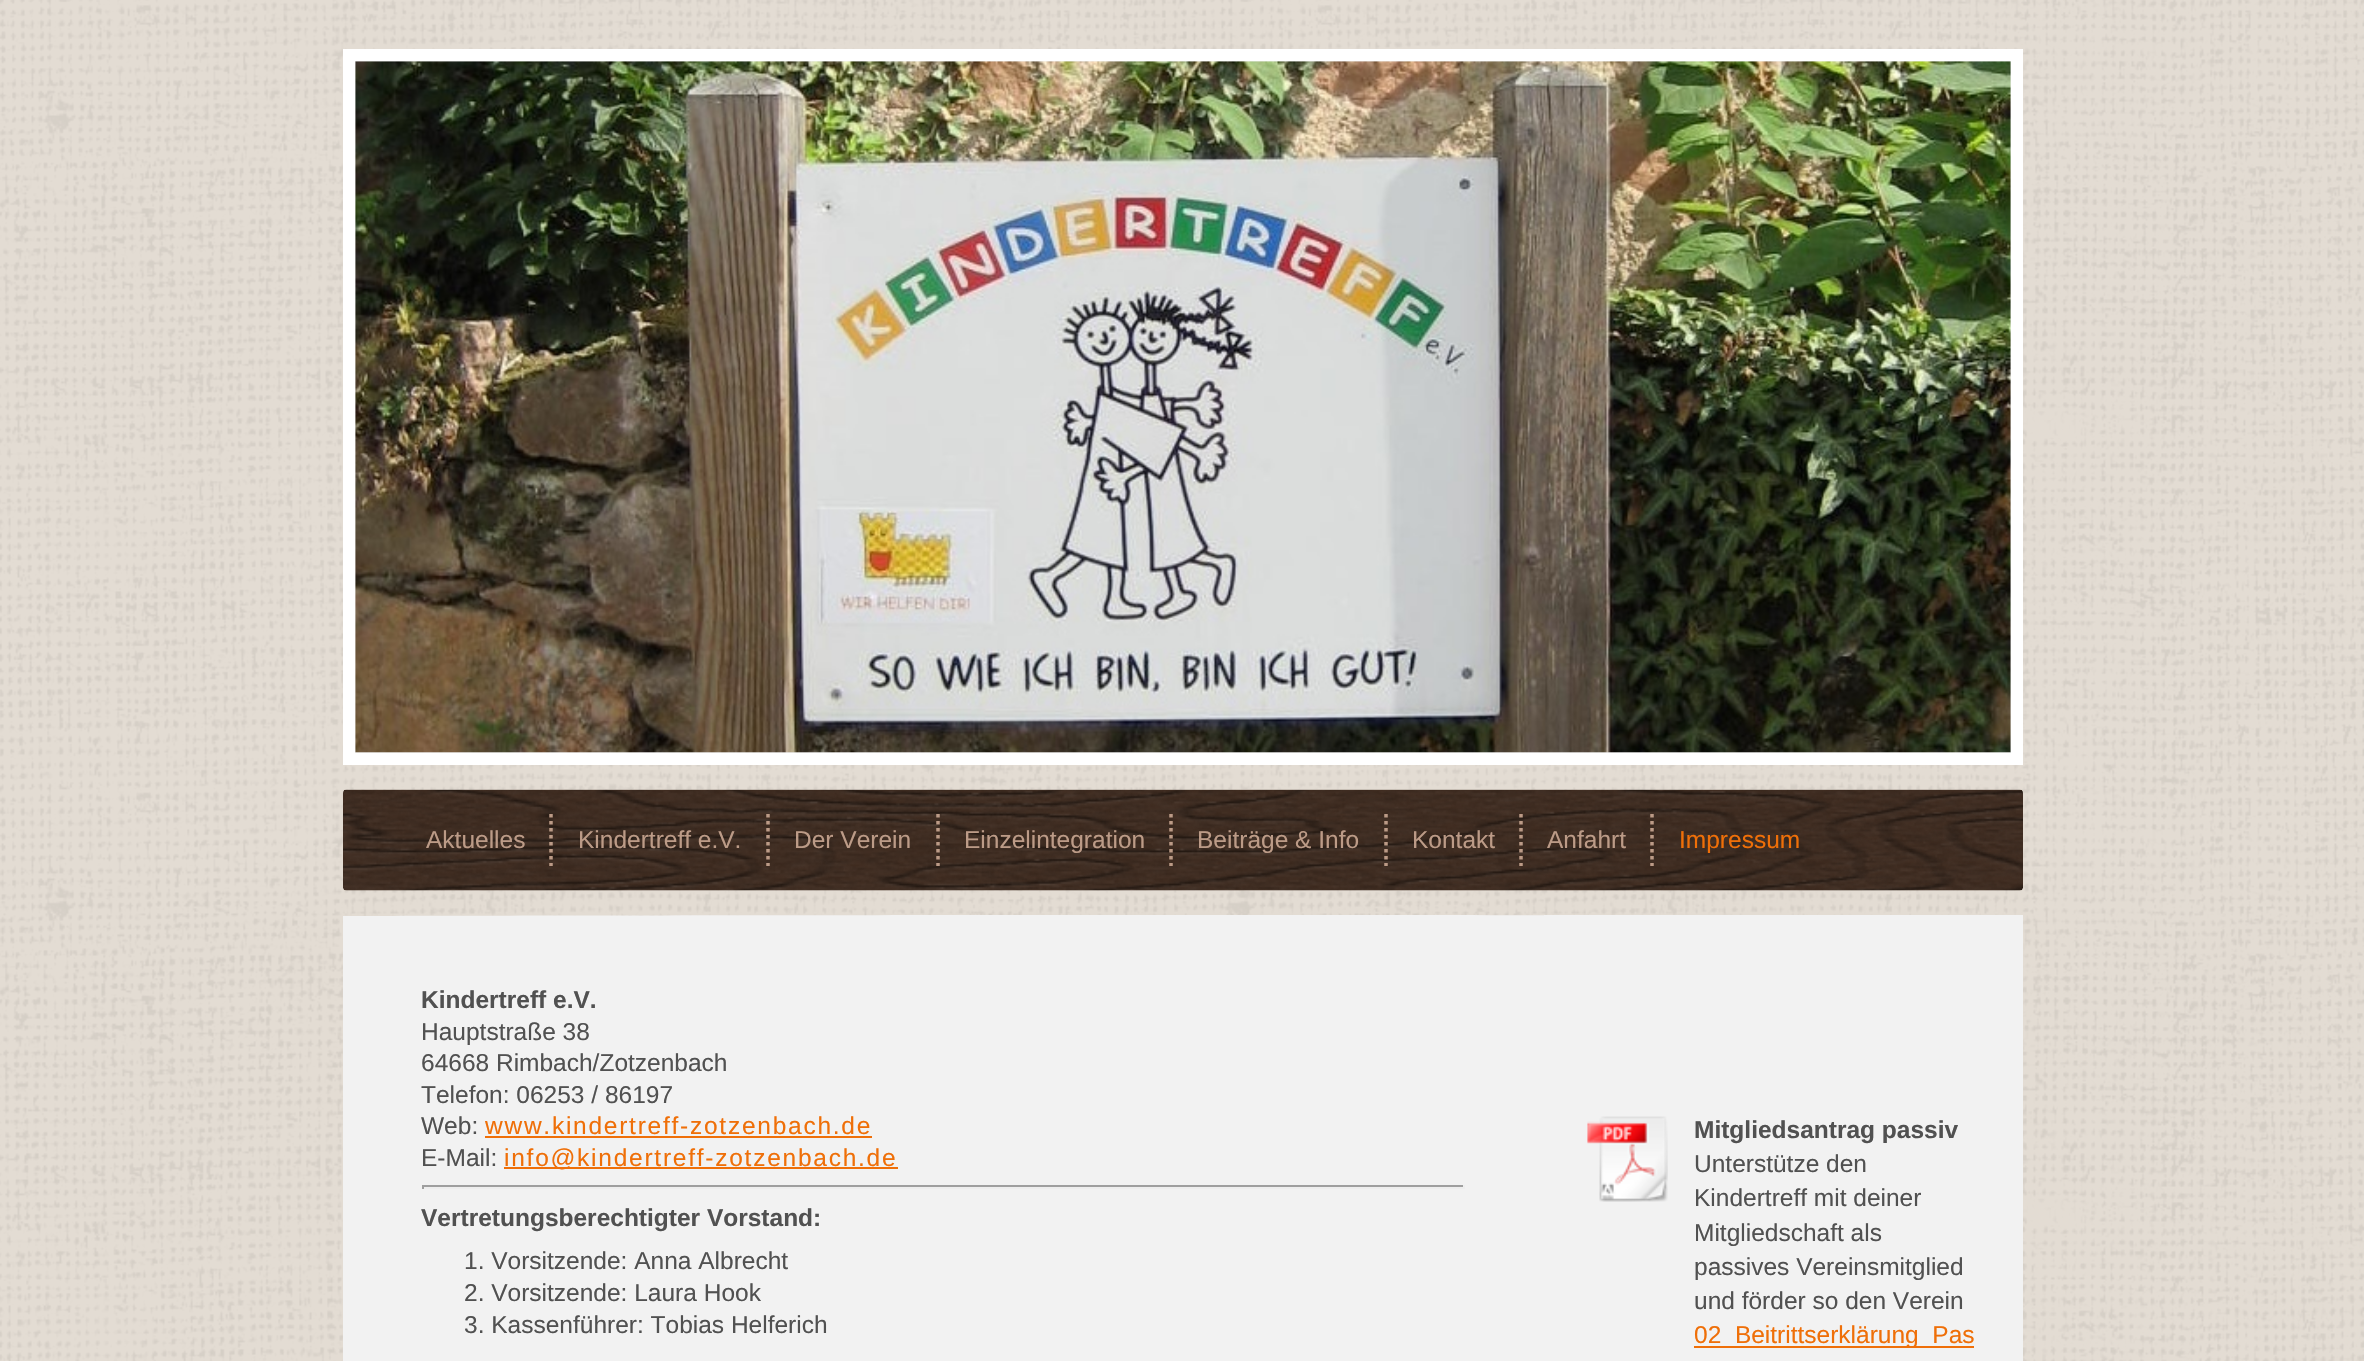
void draw(SkCanvas* canvas) {
  SkPaint paint;
  paint.setAntiAlias(true);
  auto face = [&](const char* family, int weight, float size, bool italic = false) {
    SkFontStyle style(weight, SkFontStyle::kNormal_Width,
      italic ? SkFontStyle::kItalic_Slant : SkFontStyle::kUpright_Slant);
    SkFont result(fontMgr->matchFamilyStyle(family, style), size);
    result.setSubpixel(true);
    return result;
  };
  auto writeSpaced = [&](const char* s, float x, float y, const SkFont& font, const SkPaint& ink, float letter, float word) {
    std::vector<SkGlyphID> glyphs(font.countText(s, strlen(s), SkTextEncoding::kUTF8));
    std::vector<float> xs(glyphs.size());
    font.textToGlyphs(s, strlen(s), SkTextEncoding::kUTF8, glyphs);
    font.getXPos(glyphs, xs, x);
    float extra = 0;
    for (size_t i = 0; i < glyphs.size(); i++) {
      xs[i] += extra;
      extra += letter + word * (glyphs[i] == font.unicharToGlyph(' '));
    }
    canvas->drawTextBlob(SkTextBlob::MakeFromPosHGlyphs(glyphs, xs, y, font), 0, 0, ink);
  };
  auto paste = [&](const char* path, float x, float y, float w, float h) {
    auto image = SkImages::DeferredFromEncodedData(SkData::MakeFromFileName(path));
    canvas->drawImageRect(image, SkRect::MakeXYWH(x, y, w, h), SkSamplingOptions());
  };
  auto shape = [&](const char* data, bool evenOdd = false) {
    SkPath result = *SkParsePath::FromSVGString(data);
    if (evenOdd) result.setFillType(SkPathFillType::kEvenOdd);
    return result;
  };
  canvas->clear(0xffe3dcd3);
  paste("img/1.png", 0, 0, 2364, 1361);
  paint.setStroke(true);
  paint.setStrokeWidth(12);
  paint.setColor(0xffffffff);
  canvas->drawRect(SkRect::MakeXYWH(349, 55, 1668, 704), paint);
  paint.setStroke(false);
  paint.setColor(0xffeeeeee);
  canvas->drawRect(SkRect::MakeXYWH(355, 61, 1656, 692), paint);
  paste("img/2.png", 355, 61, 1656, 692);
  paste("img/3.png", 343, 789, 1680, 102);
  paint.setStroke(true);
  paint.setStrokeWidth(3.5f);
  paint.setColor(0xffbc9b87);
  paint.setPathEffect(SkDashPathEffect::Make({{3.5f, 3.5f}}, 0));
  canvas->drawPath(shape("M551 814V866"), paint);
  paint.setPathEffect(nullptr);
  paint.setPathEffect(SkDashPathEffect::Make({{3.5f, 3.5f}}, 0));
  canvas->drawPath(shape("M768 814V866"), paint);
  paint.setPathEffect(nullptr);
  paint.setPathEffect(SkDashPathEffect::Make({{3.5f, 3.5f}}, 0));
  canvas->drawPath(shape("M938 814V866"), paint);
  paint.setPathEffect(nullptr);
  paint.setPathEffect(SkDashPathEffect::Make({{3.5f, 3.5f}}, 0));
  canvas->drawPath(shape("M1171 814V866"), paint);
  paint.setPathEffect(nullptr);
  paint.setPathEffect(SkDashPathEffect::Make({{3.5f, 3.5f}}, 0));
  canvas->drawPath(shape("M1386 814V866"), paint);
  paint.setPathEffect(nullptr);
  paint.setPathEffect(SkDashPathEffect::Make({{3.5f, 3.5f}}, 0));
  canvas->drawPath(shape("M1521 814V866"), paint);
  paint.setPathEffect(nullptr);
  paint.setPathEffect(SkDashPathEffect::Make({{3.5f, 3.5f}}, 0));
  canvas->drawPath(shape("M1652 814V866"), paint);
  paint.setPathEffect(nullptr);
  paint.setStroke(false);
  paint.setColor(0xfff2f2f2);
  canvas->drawPath(shape("M1183 915C1647 915 2023 916 2023 916V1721C2023 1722 1647 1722 1183 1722C719 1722 343 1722 343 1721V916C343 916 719 915 1183 915Z"), paint);
  {
    const struct { float x, y, w, h; SkColor color; } items[] = {
      {485, 1136, 387, 2, 0xffef6f08},
      {504, 1167, 394, 2, 0xffef6f08},
      {422, 1185, 1043, 2, 0xff9f9f9f},
      {1463, 1185, 2, 4, 0xffeeeeee},
      {422, 1187, 1043, 2, 0xffeeeeee},
      {422, 1185, 2, 4, 0xff9f9f9f},
      {1544, 915, 479, 1, 0xfff2f2f2},
    };
    for (auto [x, y, w, h, color] : items) {
      paint.setColor(color);
      canvas->drawRect(SkRect::MakeXYWH(x, y, w, h), paint);
    }
  }
  paste("img/4.png", 1587, 1116, 81, 86);
  paint.setColor(0xffef6f08);
  canvas->drawRect(SkRect::MakeXYWH(1694, 1346, 280, 2), paint);
  auto f0 = face("Liberation Sans", 400, 24.5f);
  paint.setColor(0xffbc9b87);
  {
    const struct { const char* s; float x, y; } items[] = {
      {"Aktuelles", 426, 848},
      {"Kindertreff e.V.", 578, 848},
      {"Der Verein", 794, 848},
      {"Einzelintegration", 964, 848},
      {"Beiträge & Info", 1197, 848},
      {"Kontakt", 1412, 848},
      {"Anfahrt", 1547, 848},
    };
    for (auto [s, x, y] : items) {
      canvas->drawString(s, x, y, f0, paint);
    }
  }
  paint.setColor(0xffef6f08);
  canvas->drawString("Impressum", 1679, 848, f0, paint);
  auto f1 = face("Liberation Sans", 700, 24.5f);
  paint.setColor(0xff515151);
  canvas->drawString("Kindertreff e.V.", 421, 1008, f1, paint);
  {
    const struct { const char* s; float x, y; } items[] = {
      {"Hauptstraße 38", 421, 1040},
      {"64668 Rimbach/Zotzenbach", 421, 1071},
      {"Telefon: 06253 / 86197", 421, 1103},
      {"Web:", 421, 1134},
    };
    for (auto [s, x, y] : items) {
      canvas->drawString(s, x, y, f0, paint);
    }
  }
  paint.setColor(0xffef6f08);
  writeSpaced("www.kindertreff-zotzenbach.de", 485, 1134, f0, paint, 1.75f, 0);
  paint.setColor(0xff515151);
  canvas->drawString("E-Mail:", 421, 1166, f0, paint);
  paint.setColor(0xffef6f08);
  writeSpaced("info@kindertreff-zotzenbach.de", 504, 1166, f0, paint, 1.75f, 0);
  paint.setColor(0xff515151);
  canvas->drawString("Vertretungsberechtigter Vorstand:", 421, 1226, f1, paint);
  {
    const struct { const char* s; float x, y; } items[] = {
      {"1. Vorsitzende: Anna Albrecht", 464, 1269},
      {"2. Vorsitzende: Laura Hook", 464, 1301},
      {"3. Kassenführer: Tobias Helferich", 464, 1333},
    };
    for (auto [s, x, y] : items) {
      canvas->drawString(s, x, y, f0, paint);
    }
  }
  canvas->drawString("Mitgliedsantrag passiv", 1694, 1138, f1, paint);
  {
    const struct { const char* s; float x, y; } items[] = {
      {"Unterstütze den", 1694, 1172},
      {"Kindertreff mit deiner", 1694, 1206},
      {"Mitgliedschaft als", 1694, 1241},
      {"passives Vereinsmitglied", 1694, 1275},
      {"und förder so den Verein", 1694, 1309},
    };
    for (auto [s, x, y] : items) {
      canvas->drawString(s, x, y, f0, paint);
    }
  }
  paint.setColor(0xffef6f08);
  canvas->drawString("02_Beitrittserklärung_Pas", 1694, 1343, f0, paint);
}
